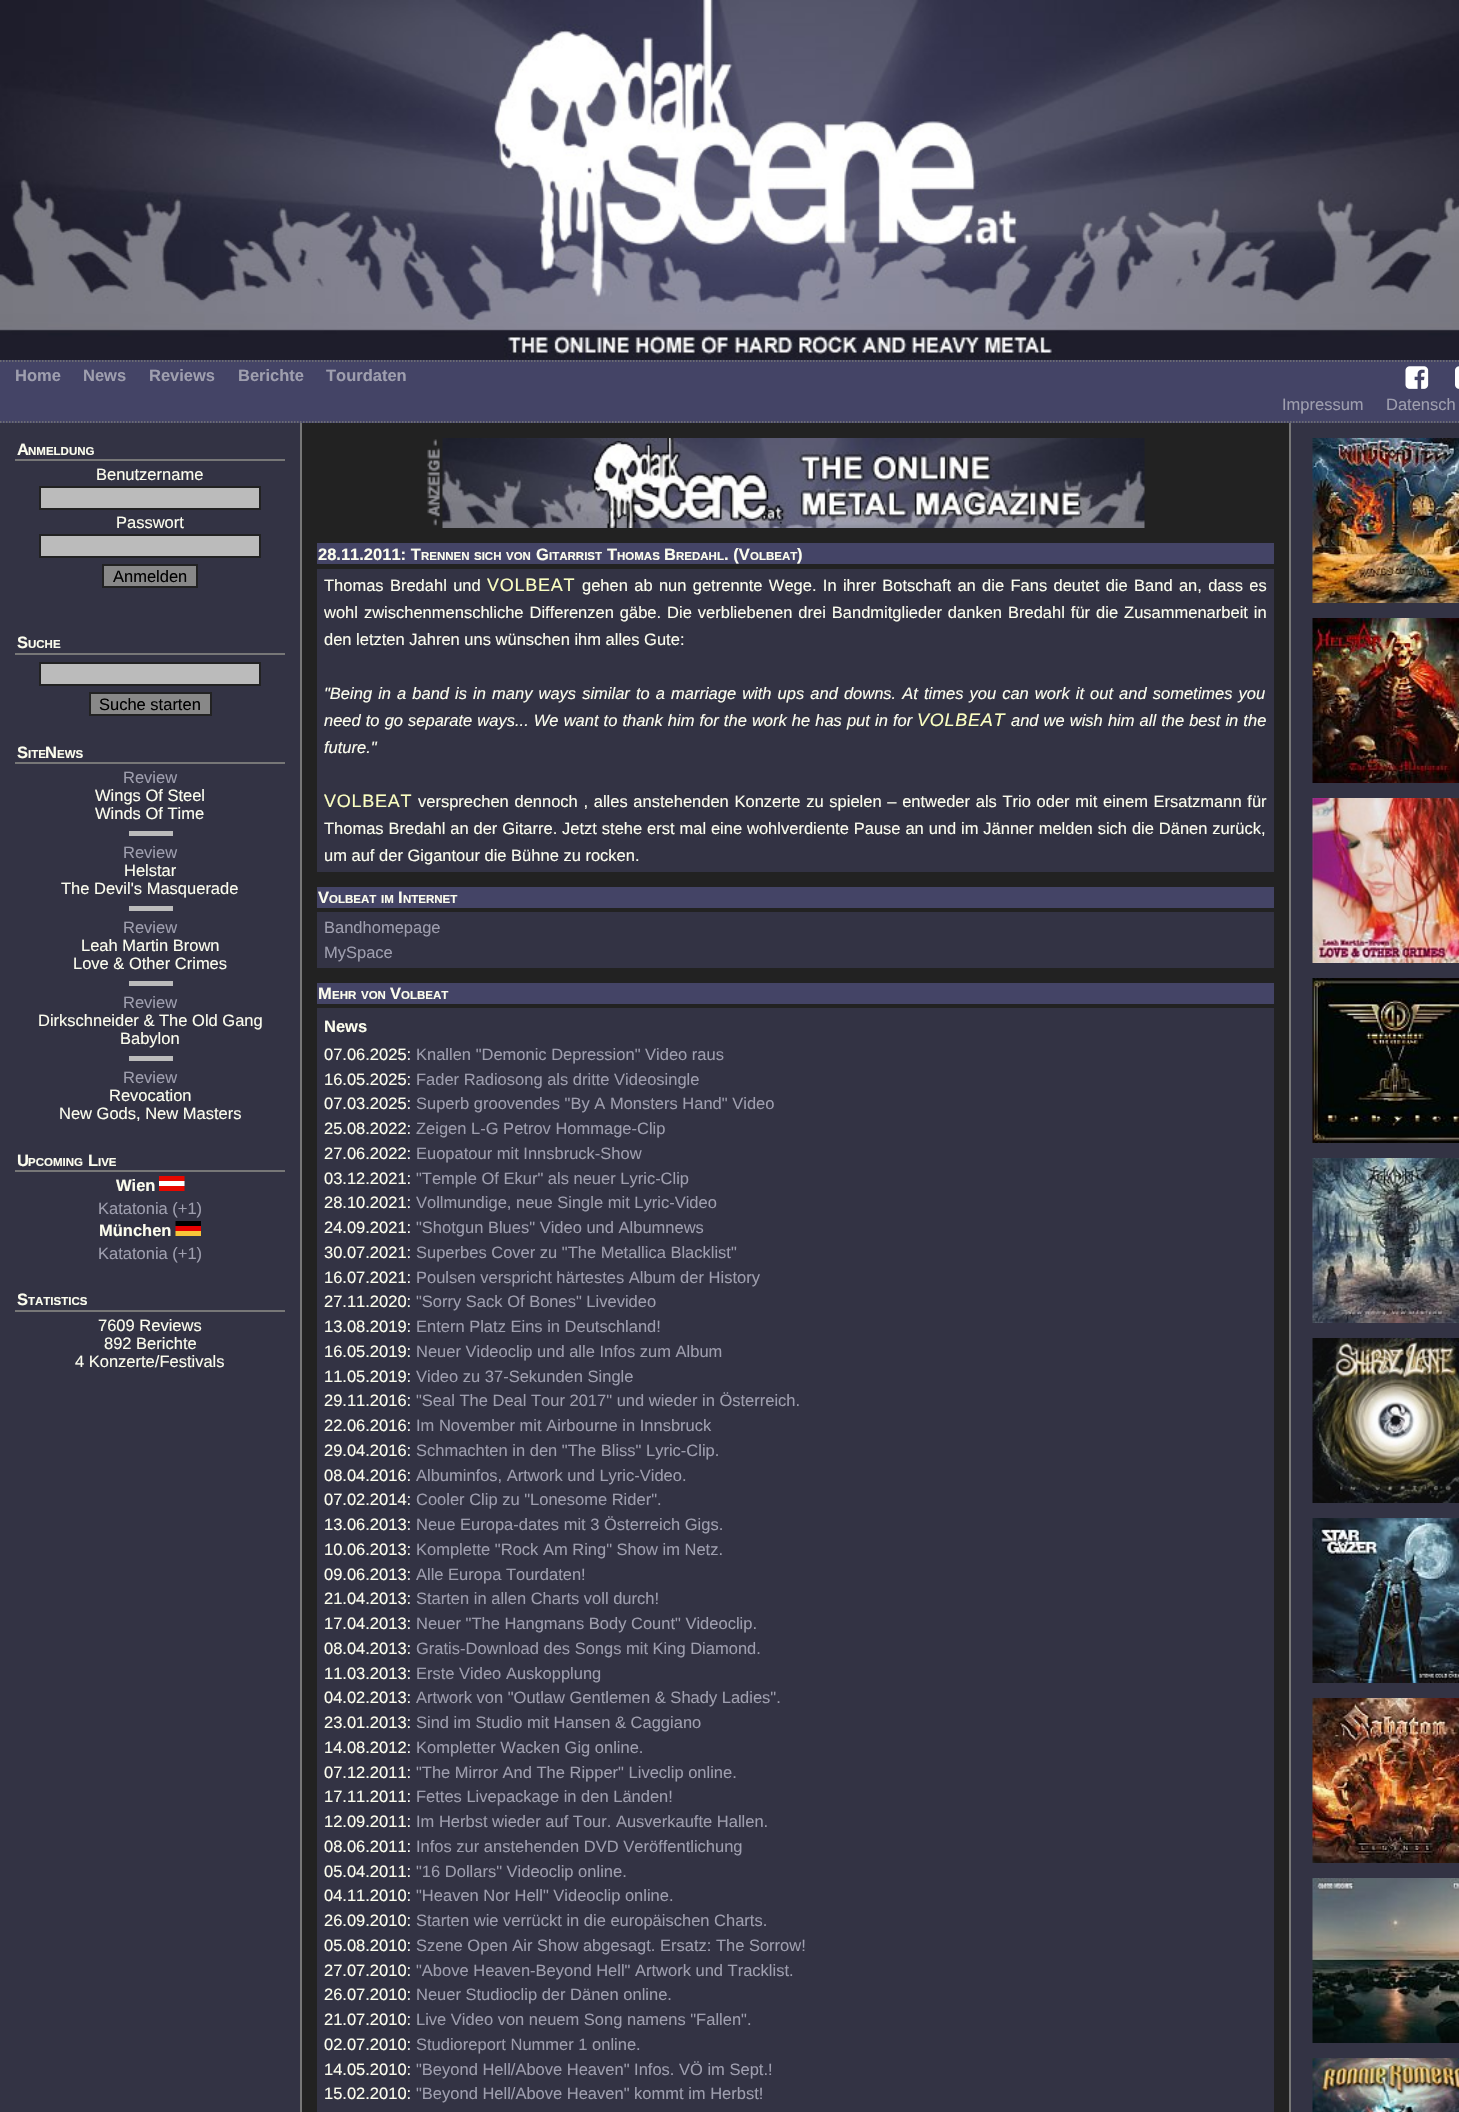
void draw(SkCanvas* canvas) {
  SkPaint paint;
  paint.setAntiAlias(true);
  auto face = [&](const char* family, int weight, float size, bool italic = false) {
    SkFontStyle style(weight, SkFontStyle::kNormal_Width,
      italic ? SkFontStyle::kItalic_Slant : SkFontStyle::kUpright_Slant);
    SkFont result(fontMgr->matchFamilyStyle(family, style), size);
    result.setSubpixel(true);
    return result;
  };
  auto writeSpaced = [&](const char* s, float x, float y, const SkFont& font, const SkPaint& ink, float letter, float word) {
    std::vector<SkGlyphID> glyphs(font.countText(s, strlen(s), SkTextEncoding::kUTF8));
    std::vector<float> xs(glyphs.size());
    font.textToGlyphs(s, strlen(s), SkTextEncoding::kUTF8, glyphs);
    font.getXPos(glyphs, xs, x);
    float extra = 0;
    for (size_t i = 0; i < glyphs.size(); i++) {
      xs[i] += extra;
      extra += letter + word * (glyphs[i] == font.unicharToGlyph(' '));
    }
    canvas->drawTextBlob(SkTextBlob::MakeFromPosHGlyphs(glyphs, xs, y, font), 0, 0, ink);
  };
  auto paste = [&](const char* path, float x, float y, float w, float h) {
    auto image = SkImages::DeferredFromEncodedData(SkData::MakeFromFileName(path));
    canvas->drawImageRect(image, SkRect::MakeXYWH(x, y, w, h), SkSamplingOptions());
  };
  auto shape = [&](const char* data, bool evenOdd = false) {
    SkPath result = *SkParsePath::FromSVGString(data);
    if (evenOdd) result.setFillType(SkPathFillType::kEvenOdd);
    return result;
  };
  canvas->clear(0xff444466);
  paste("img/1.png", 0, 0, 1459, 360);
  paint.setStroke(true);
  paint.setStrokeWidth(1.5f);
  paint.setColor(0xff777777);
  paint.setPathEffect(SkDashPathEffect::Make({{1.5f, 1.5f}}, 0));
  canvas->drawPath(shape("M0 361H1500"), paint);
  paint.setPathEffect(nullptr);
  paint.setPathEffect(SkDashPathEffect::Make({{1.5f, 1.5f}}, 0));
  canvas->drawPath(shape("M0 422H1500"), paint);
  paint.setPathEffect(nullptr);
  paste("img/2.png", 1405, 366, 24, 23);
  paste("img/3.png", 1455, 366, 4, 23);
  paint.setStroke(false);
  paint.setColor(0xff333344);
  canvas->drawRect(SkRect::MakeXYWH(0, 423, 300, 1689), paint);
  paint.setColor(0xff777777);
  canvas->drawRect(SkRect::MakeXYWH(15, 459, 270, 2), paint);
  paint.setColor(0xffbbbbbb);
  canvas->drawRect(SkRect::MakeXYWH(40, 487, 220, 22), paint);
  paint.setStroke(true);
  paint.setStrokeWidth(2);
  paint.setColor(0xff222222);
  canvas->drawRect(SkRect::MakeXYWH(40, 487, 220, 22), paint);
  paint.setStroke(false);
  paint.setColor(0xffbbbbbb);
  canvas->drawRect(SkRect::MakeXYWH(40, 535, 220, 22), paint);
  paint.setStroke(true);
  paint.setColor(0xff222222);
  canvas->drawRect(SkRect::MakeXYWH(40, 535, 220, 22), paint);
  paint.setStroke(false);
  paint.setColor(0xff888888);
  canvas->drawRect(SkRect::MakeXYWH(103, 565, 94, 22), paint);
  paint.setStroke(true);
  paint.setColor(0xff222222);
  canvas->drawRect(SkRect::MakeXYWH(103, 565, 94, 22), paint);
  paint.setStroke(false);
  paint.setColor(0xff777777);
  canvas->drawRect(SkRect::MakeXYWH(15, 653, 270, 2), paint);
  paint.setColor(0xffbbbbbb);
  canvas->drawRect(SkRect::MakeXYWH(40, 663, 220, 22), paint);
  paint.setStroke(true);
  paint.setColor(0xff222222);
  canvas->drawRect(SkRect::MakeXYWH(40, 663, 220, 22), paint);
  paint.setStroke(false);
  paint.setColor(0xff888888);
  canvas->drawRect(SkRect::MakeXYWH(90, 693, 121, 22), paint);
  paint.setStroke(true);
  paint.setColor(0xff222222);
  canvas->drawRect(SkRect::MakeXYWH(90, 693, 121, 22), paint);
  paint.setStroke(false);
  {
    const struct { float x, y, w, h; SkColor color; } items[] = {
      {15, 762, 270, 2, 0xff777777},
      {129, 831, 44, 5, 0xffbbbbbb},
      {129, 906, 44, 5, 0xffbbbbbb},
      {129, 981, 44, 5, 0xffbbbbbb},
      {129, 1056, 44, 5, 0xffbbbbbb},
      {15, 1170, 270, 2, 0xff777777},
    };
    for (auto [x, y, w, h, color] : items) {
      paint.setColor(color);
      canvas->drawRect(SkRect::MakeXYWH(x, y, w, h), paint);
    }
  }
  paste("img/4.png", 159, 1176, 26, 15);
  paste("img/5.png", 175, 1221, 26, 15);
  {
    const struct { float x, y, w, h; SkColor color; } items[] = {
      {15, 1310, 270, 2, 0xff777777},
      {302, 423, 987, 1689, 0xff222222},
      {300, 423, 2, 1689, 0xff777777},
    };
    for (auto [x, y, w, h, color] : items) {
      paint.setColor(color);
      canvas->drawRect(SkRect::MakeXYWH(x, y, w, h), paint);
    }
  }
  paste("img/6.png", 427, 439, 13, 87);
  paste("img/7.png", 442, 438, 703, 90);
  {
    const struct { float x, y, w, h; SkColor color; } items[] = {
      {317, 543, 957, 21, 0xff444466},
      {317, 569, 957, 303, 0xff333344},
      {317, 887, 957, 21, 0xff444466},
      {317, 912, 957, 56, 0xff333344},
      {317, 983, 957, 21, 0xff444466},
      {317, 1008, 957, 1104, 0xff333344},
      {1291, 423, 168, 1689, 0xff333344},
      {1289, 423, 2, 1689, 0xff777777},
    };
    for (auto [x, y, w, h, color] : items) {
      paint.setColor(color);
      canvas->drawRect(SkRect::MakeXYWH(x, y, w, h), paint);
    }
  }
  paste("img/8.png", 1312, 438, 147, 165);
  paste("img/9.png", 1312, 618, 147, 165);
  paste("img/10.png", 1312, 798, 147, 165);
  paste("img/11.png", 1312, 978, 147, 165);
  paste("img/12.png", 1312, 1158, 147, 165);
  paste("img/13.png", 1312, 1338, 147, 165);
  paste("img/14.png", 1312, 1518, 147, 165);
  paste("img/15.png", 1312, 1698, 147, 165);
  paste("img/16.png", 1312, 1878, 147, 165);
  paste("img/17.png", 1312, 2058, 147, 54);
  auto f0 = face("Liberation Sans", 700, 16.5f);
  paint.setColor(0xff9e9eae);
  {
    const struct { const char* s; float x, y; } items[] = {
      {"Home", 15, 381},
      {"News", 83, 381},
      {"Reviews", 149, 381},
      {"Berichte", 238, 381},
      {"Tourdaten", 326, 381},
    };
    for (auto [s, x, y] : items) {
      canvas->drawString(s, x, y, f0, paint);
    }
  }
  auto f1 = face("Liberation Sans", 400, 16.5f);
  canvas->drawString("Impressum", 1282, 410, f1, paint);
  canvas->drawString("Datensch", 1386, 410, f1, paint);
  paint.setColor(0xfffcfdee);
  canvas->drawString("A", 17, 455, f0, paint);
  auto f2 = face("Liberation Sans", 700, 11.5f);
  canvas->drawString("NMELDUNG", 28, 455, f2, paint);
  canvas->drawString("Benutzername", 96, 480, f1, paint);
  canvas->drawString("Passwort", 116, 528, f1, paint);
  paint.setColor(0xff000000);
  canvas->drawString("Anmelden", 113, 582, f1, paint);
  paint.setColor(0xfffcfdee);
  canvas->drawString("S", 17, 648, f0, paint);
  canvas->drawString("UCHE", 28, 648, f2, paint);
  paint.setColor(0xff000000);
  canvas->drawString("Suche starten", 99, 710, f1, paint);
  paint.setColor(0xfffcfdee);
  canvas->drawString("S", 17, 758, f0, paint);
  canvas->drawString("ITE", 28, 758, f2, paint);
  canvas->drawString("N", 45, 758, f0, paint);
  canvas->drawString("EWS", 57, 758, f2, paint);
  paint.setColor(0xff9e9eae);
  canvas->drawString("Review", 123, 783, f1, paint);
  paint.setColor(0xfffcfdee);
  canvas->drawString("Wings Of Steel", 95, 801, f1, paint);
  canvas->drawString("Winds Of Time", 95, 819, f1, paint);
  paint.setColor(0xff9e9eae);
  canvas->drawString("Review", 123, 858, f1, paint);
  paint.setColor(0xfffcfdee);
  canvas->drawString("Helstar", 124, 876, f1, paint);
  canvas->drawString("The Devil's Masquerade", 61, 894, f1, paint);
  paint.setColor(0xff9e9eae);
  canvas->drawString("Review", 123, 933, f1, paint);
  paint.setColor(0xfffcfdee);
  canvas->drawString("Leah Martin Brown", 81, 951, f1, paint);
  canvas->drawString("Love & Other Crimes", 73, 969, f1, paint);
  paint.setColor(0xff9e9eae);
  canvas->drawString("Review", 123, 1008, f1, paint);
  paint.setColor(0xfffcfdee);
  canvas->drawString("Dirkschneider & The Old Gang", 38, 1026, f1, paint);
  canvas->drawString("Babylon", 120, 1044, f1, paint);
  paint.setColor(0xff9e9eae);
  canvas->drawString("Review", 123, 1083, f1, paint);
  paint.setColor(0xfffcfdee);
  canvas->drawString("Revocation", 109, 1101, f1, paint);
  canvas->drawString("New Gods, New Masters", 59, 1119, f1, paint);
  canvas->drawString("U", 17, 1166, f0, paint);
  canvas->drawString("PCOMING", 28, 1166, f2, paint);
  canvas->drawString("L", 88, 1166, f0, paint);
  canvas->drawString("IVE", 98, 1166, f2, paint);
  canvas->drawString("Wien", 116, 1191, f0, paint);
  paint.setColor(0xff9e9eae);
  canvas->drawString("Katatonia (+1)", 98, 1214, f1, paint);
  paint.setColor(0xfffcfdee);
  canvas->drawString("München", 99, 1236, f0, paint);
  paint.setColor(0xff9e9eae);
  canvas->drawString("Katatonia (+1)", 98, 1259, f1, paint);
  paint.setColor(0xfffcfdee);
  canvas->drawString("S", 17, 1305, f0, paint);
  canvas->drawString("TATISTICS", 28, 1305, f2, paint);
  {
    const struct { const char* s; float x, y; } items[] = {
      {"7609 Reviews", 98, 1331},
      {"892 Berichte", 104, 1349},
      {"4 Konzerte/Festivals", 75, 1367},
    };
    for (auto [s, x, y] : items) {
      canvas->drawString(s, x, y, f1, paint);
    }
  }
  canvas->drawString("28.11.2011: T", 318, 560, f0, paint);
  {
    const struct { const char* s; float x, y; } items[] = {
      {"RENNEN", 421, 560},
      {"SICH", 474, 560},
      {"VON", 506, 560},
    };
    for (auto [s, x, y] : items) {
      canvas->drawString(s, x, y, f2, paint);
    }
  }
  canvas->drawString("G", 536, 560, f0, paint);
  canvas->drawString("ITARRIST", 549, 560, f2, paint);
  canvas->drawString("T", 607, 560, f0, paint);
  canvas->drawString("HOMAS", 617, 560, f2, paint);
  canvas->drawString("B", 664, 560, f0, paint);
  canvas->drawString("REDAHL", 676, 560, f2, paint);
  canvas->drawString(". (V", 724, 560, f0, paint);
  canvas->drawString("OLBEAT", 750, 560, f2, paint);
  canvas->drawString(")", 797, 560, f0, paint);
  writeSpaced("Thomas Bredahl und", 324, 591, f1, paint, 0, 1.75f);
  auto f3 = face("Liberation Sans", 400, 18);
  paint.setColor(0xfffbffc1);
  writeSpaced("VOLBEAT", 487, 591, f3, paint, 0.75f, 0);
  paint.setColor(0xfffcfdee);
  writeSpaced("gehen ab nun getrennte Wege. In ihrer Botschaft an die Fans deutet die Band an, dass es", 582, 591, f1, paint, 0, 1.75f);
  writeSpaced("wohl zwischenmenschliche Differenzen gäbe. Die verbliebenen drei Bandmitglieder danken Bredahl für die Zusammenarbeit in", 324, 618, f1, paint, 0, 1.4f);
  canvas->drawString("den letzten Jahren uns wünschen ihm alles Gute:", 324, 645, f1, paint);
  auto f4 = face("Liberation Sans", 400, 16.5f, true);
  writeSpaced("\"Being in a band is in many ways similar to a marriage with ups and downs. At times you can work it out and sometimes you", 324, 699, f4, paint, 0, 1.5f);
  writeSpaced("need to go separate ways... We want to thank him for the work he has put in for", 324, 726, f4, paint, 0, 0.5f);
  auto f5 = face("Liberation Sans", 400, 18, true);
  paint.setColor(0xfffbffc1);
  writeSpaced("VOLBEAT", 917, 726, f5, paint, 0.75f, 0);
  paint.setColor(0xfffcfdee);
  writeSpaced("and we wish him all the best in the", 1011, 726, f4, paint, 0, 0.5f);
  canvas->drawString("future.\"", 324, 753, f4, paint);
  paint.setColor(0xfffbffc1);
  writeSpaced("VOLBEAT", 324, 807, f3, paint, 0.75f, 0);
  paint.setColor(0xfffcfdee);
  writeSpaced("versprechen dennoch , alles anstehenden Konzerte zu spielen – entweder als Trio oder mit einem Ersatzmann für", 418, 807, f1, paint, 0, 1.1f);
  writeSpaced("Thomas Bredahl an der Gitarre. Jetzt stehe erst mal eine wohlverdiente Pause an und im Jänner melden sich die Dänen zurück,", 324, 834, f1, paint, 0, 0.3f);
  canvas->drawString("um auf der Gigantour die Bühne zu rocken.", 324, 861, f1, paint);
  canvas->drawString("V", 318, 903, f0, paint);
  canvas->drawString("OLBEAT", 329, 903, f2, paint);
  canvas->drawString("IM", 381, 903, f2, paint);
  canvas->drawString("I", 398, 903, f0, paint);
  canvas->drawString("NTERNET", 403, 903, f2, paint);
  paint.setColor(0xff9e9eae);
  canvas->drawString("Bandhomepage", 324, 933, f1, paint);
  canvas->drawString("MySpace", 324, 958, f1, paint);
  paint.setColor(0xfffcfdee);
  canvas->drawString("M", 318, 999, f0, paint);
  canvas->drawString("EHR", 332, 999, f2, paint);
  canvas->drawString("VON", 361, 999, f2, paint);
  canvas->drawString("V", 390, 999, f0, paint);
  canvas->drawString("OLBEAT", 401, 999, f2, paint);
  canvas->drawString("News", 324, 1032, f0, paint);
  canvas->drawString("07.06.2025:", 324, 1060, f1, paint);
  paint.setColor(0xff9e9eae);
  canvas->drawString("Knallen \"Demonic Depression\" Video raus", 416, 1060, f1, paint);
  paint.setColor(0xfffcfdee);
  canvas->drawString("16.05.2025:", 324, 1085, f1, paint);
  paint.setColor(0xff9e9eae);
  canvas->drawString("Fader Radiosong als dritte Videosingle", 416, 1085, f1, paint);
  paint.setColor(0xfffcfdee);
  canvas->drawString("07.03.2025:", 324, 1109, f1, paint);
  paint.setColor(0xff9e9eae);
  canvas->drawString("Superb groovendes \"By A Monsters Hand\" Video", 416, 1109, f1, paint);
  paint.setColor(0xfffcfdee);
  canvas->drawString("25.08.2022:", 324, 1134, f1, paint);
  paint.setColor(0xff9e9eae);
  canvas->drawString("Zeigen L-G Petrov Hommage-Clip", 416, 1134, f1, paint);
  paint.setColor(0xfffcfdee);
  canvas->drawString("27.06.2022:", 324, 1159, f1, paint);
  paint.setColor(0xff9e9eae);
  canvas->drawString("Euopatour mit Innsbruck-Show", 416, 1159, f1, paint);
  paint.setColor(0xfffcfdee);
  canvas->drawString("03.12.2021:", 324, 1184, f1, paint);
  paint.setColor(0xff9e9eae);
  canvas->drawString("\"Temple Of Ekur\" als neuer Lyric-Clip", 416, 1184, f1, paint);
  paint.setColor(0xfffcfdee);
  canvas->drawString("28.10.2021:", 324, 1208, f1, paint);
  paint.setColor(0xff9e9eae);
  canvas->drawString("Vollmundige, neue Single mit Lyric-Video", 416, 1208, f1, paint);
  paint.setColor(0xfffcfdee);
  canvas->drawString("24.09.2021:", 324, 1233, f1, paint);
  paint.setColor(0xff9e9eae);
  canvas->drawString("\"Shotgun Blues\" Video und Albumnews", 416, 1233, f1, paint);
  paint.setColor(0xfffcfdee);
  canvas->drawString("30.07.2021:", 324, 1258, f1, paint);
  paint.setColor(0xff9e9eae);
  canvas->drawString("Superbes Cover zu \"The Metallica Blacklist\"", 416, 1258, f1, paint);
  paint.setColor(0xfffcfdee);
  canvas->drawString("16.07.2021:", 324, 1283, f1, paint);
  paint.setColor(0xff9e9eae);
  canvas->drawString("Poulsen verspricht härtestes Album der History", 416, 1283, f1, paint);
  paint.setColor(0xfffcfdee);
  canvas->drawString("27.11.2020:", 324, 1307, f1, paint);
  paint.setColor(0xff9e9eae);
  canvas->drawString("\"Sorry Sack Of Bones\" Livevideo", 416, 1307, f1, paint);
  paint.setColor(0xfffcfdee);
  canvas->drawString("13.08.2019:", 324, 1332, f1, paint);
  paint.setColor(0xff9e9eae);
  canvas->drawString("Entern Platz Eins in Deutschland!", 416, 1332, f1, paint);
  paint.setColor(0xfffcfdee);
  canvas->drawString("16.05.2019:", 324, 1357, f1, paint);
  paint.setColor(0xff9e9eae);
  canvas->drawString("Neuer Videoclip und alle Infos zum Album", 416, 1357, f1, paint);
  paint.setColor(0xfffcfdee);
  canvas->drawString("11.05.2019:", 324, 1382, f1, paint);
  paint.setColor(0xff9e9eae);
  canvas->drawString("Video zu 37-Sekunden Single", 416, 1382, f1, paint);
  paint.setColor(0xfffcfdee);
  canvas->drawString("29.11.2016:", 324, 1406, f1, paint);
  paint.setColor(0xff9e9eae);
  canvas->drawString("\"Seal The Deal Tour 2017\" und wieder in Österreich.", 416, 1406, f1, paint);
  paint.setColor(0xfffcfdee);
  canvas->drawString("22.06.2016:", 324, 1431, f1, paint);
  paint.setColor(0xff9e9eae);
  canvas->drawString("Im November mit Airbourne in Innsbruck", 416, 1431, f1, paint);
  paint.setColor(0xfffcfdee);
  canvas->drawString("29.04.2016:", 324, 1456, f1, paint);
  paint.setColor(0xff9e9eae);
  canvas->drawString("Schmachten in den \"The Bliss\" Lyric-Clip.", 416, 1456, f1, paint);
  paint.setColor(0xfffcfdee);
  canvas->drawString("08.04.2016:", 324, 1481, f1, paint);
  paint.setColor(0xff9e9eae);
  canvas->drawString("Albuminfos, Artwork und Lyric-Video.", 416, 1481, f1, paint);
  paint.setColor(0xfffcfdee);
  canvas->drawString("07.02.2014:", 324, 1505, f1, paint);
  paint.setColor(0xff9e9eae);
  canvas->drawString("Cooler Clip zu \"Lonesome Rider\".", 416, 1505, f1, paint);
  paint.setColor(0xfffcfdee);
  canvas->drawString("13.06.2013:", 324, 1530, f1, paint);
  paint.setColor(0xff9e9eae);
  canvas->drawString("Neue Europa-dates mit 3 Österreich Gigs.", 416, 1530, f1, paint);
  paint.setColor(0xfffcfdee);
  canvas->drawString("10.06.2013:", 324, 1555, f1, paint);
  paint.setColor(0xff9e9eae);
  canvas->drawString("Komplette \"Rock Am Ring\" Show im Netz.", 416, 1555, f1, paint);
  paint.setColor(0xfffcfdee);
  canvas->drawString("09.06.2013:", 324, 1580, f1, paint);
  paint.setColor(0xff9e9eae);
  canvas->drawString("Alle Europa Tourdaten!", 416, 1580, f1, paint);
  paint.setColor(0xfffcfdee);
  canvas->drawString("21.04.2013:", 324, 1604, f1, paint);
  paint.setColor(0xff9e9eae);
  canvas->drawString("Starten in allen Charts voll durch!", 416, 1604, f1, paint);
  paint.setColor(0xfffcfdee);
  canvas->drawString("17.04.2013:", 324, 1629, f1, paint);
  paint.setColor(0xff9e9eae);
  canvas->drawString("Neuer \"The Hangmans Body Count\" Videoclip.", 416, 1629, f1, paint);
  paint.setColor(0xfffcfdee);
  canvas->drawString("08.04.2013:", 324, 1654, f1, paint);
  paint.setColor(0xff9e9eae);
  canvas->drawString("Gratis-Download des Songs mit King Diamond.", 416, 1654, f1, paint);
  paint.setColor(0xfffcfdee);
  canvas->drawString("11.03.2013:", 324, 1679, f1, paint);
  paint.setColor(0xff9e9eae);
  canvas->drawString("Erste Video Auskopplung", 416, 1679, f1, paint);
  paint.setColor(0xfffcfdee);
  canvas->drawString("04.02.2013:", 324, 1703, f1, paint);
  paint.setColor(0xff9e9eae);
  canvas->drawString("Artwork von \"Outlaw Gentlemen & Shady Ladies\".", 416, 1703, f1, paint);
  paint.setColor(0xfffcfdee);
  canvas->drawString("23.01.2013:", 324, 1728, f1, paint);
  paint.setColor(0xff9e9eae);
  canvas->drawString("Sind im Studio mit Hansen & Caggiano", 416, 1728, f1, paint);
  paint.setColor(0xfffcfdee);
  canvas->drawString("14.08.2012:", 324, 1753, f1, paint);
  paint.setColor(0xff9e9eae);
  canvas->drawString("Kompletter Wacken Gig online.", 416, 1753, f1, paint);
  paint.setColor(0xfffcfdee);
  canvas->drawString("07.12.2011:", 324, 1778, f1, paint);
  paint.setColor(0xff9e9eae);
  canvas->drawString("\"The Mirror And The Ripper\" Liveclip online.", 416, 1778, f1, paint);
  paint.setColor(0xfffcfdee);
  canvas->drawString("17.11.2011:", 324, 1802, f1, paint);
  paint.setColor(0xff9e9eae);
  canvas->drawString("Fettes Livepackage in den Länden!", 416, 1802, f1, paint);
  paint.setColor(0xfffcfdee);
  canvas->drawString("12.09.2011:", 324, 1827, f1, paint);
  paint.setColor(0xff9e9eae);
  canvas->drawString("Im Herbst wieder auf Tour. Ausverkaufte Hallen.", 416, 1827, f1, paint);
  paint.setColor(0xfffcfdee);
  canvas->drawString("08.06.2011:", 324, 1852, f1, paint);
  paint.setColor(0xff9e9eae);
  canvas->drawString("Infos zur anstehenden DVD Veröffentlichung", 416, 1852, f1, paint);
  paint.setColor(0xfffcfdee);
  canvas->drawString("05.04.2011:", 324, 1877, f1, paint);
  paint.setColor(0xff9e9eae);
  canvas->drawString("\"16 Dollars\" Videoclip online.", 416, 1877, f1, paint);
  paint.setColor(0xfffcfdee);
  canvas->drawString("04.11.2010:", 324, 1901, f1, paint);
  paint.setColor(0xff9e9eae);
  canvas->drawString("\"Heaven Nor Hell\" Videoclip online.", 416, 1901, f1, paint);
  paint.setColor(0xfffcfdee);
  canvas->drawString("26.09.2010:", 324, 1926, f1, paint);
  paint.setColor(0xff9e9eae);
  canvas->drawString("Starten wie verrückt in die europäischen Charts.", 416, 1926, f1, paint);
  paint.setColor(0xfffcfdee);
  canvas->drawString("05.08.2010:", 324, 1951, f1, paint);
  paint.setColor(0xff9e9eae);
  canvas->drawString("Szene Open Air Show abgesagt. Ersatz: The Sorrow!", 416, 1951, f1, paint);
  paint.setColor(0xfffcfdee);
  canvas->drawString("27.07.2010:", 324, 1976, f1, paint);
  paint.setColor(0xff9e9eae);
  canvas->drawString("\"Above Heaven-Beyond Hell\" Artwork und Tracklist.", 416, 1976, f1, paint);
  paint.setColor(0xfffcfdee);
  canvas->drawString("26.07.2010:", 324, 2000, f1, paint);
  paint.setColor(0xff9e9eae);
  canvas->drawString("Neuer Studioclip der Dänen online.", 416, 2000, f1, paint);
  paint.setColor(0xfffcfdee);
  canvas->drawString("21.07.2010:", 324, 2025, f1, paint);
  paint.setColor(0xff9e9eae);
  canvas->drawString("Live Video von neuem Song namens \"Fallen\".", 416, 2025, f1, paint);
  paint.setColor(0xfffcfdee);
  canvas->drawString("02.07.2010:", 324, 2050, f1, paint);
  paint.setColor(0xff9e9eae);
  canvas->drawString("Studioreport Nummer 1 online.", 416, 2050, f1, paint);
  paint.setColor(0xfffcfdee);
  canvas->drawString("14.05.2010:", 324, 2075, f1, paint);
  paint.setColor(0xff9e9eae);
  canvas->drawString("\"Beyond Hell/Above Heaven\" Infos. VÖ im Sept.!", 416, 2075, f1, paint);
  paint.setColor(0xfffcfdee);
  canvas->drawString("15.02.2010:", 324, 2099, f1, paint);
  paint.setColor(0xff9e9eae);
  canvas->drawString("\"Beyond Hell/Above Heaven\" kommt im Herbst!", 416, 2099, f1, paint);
}
